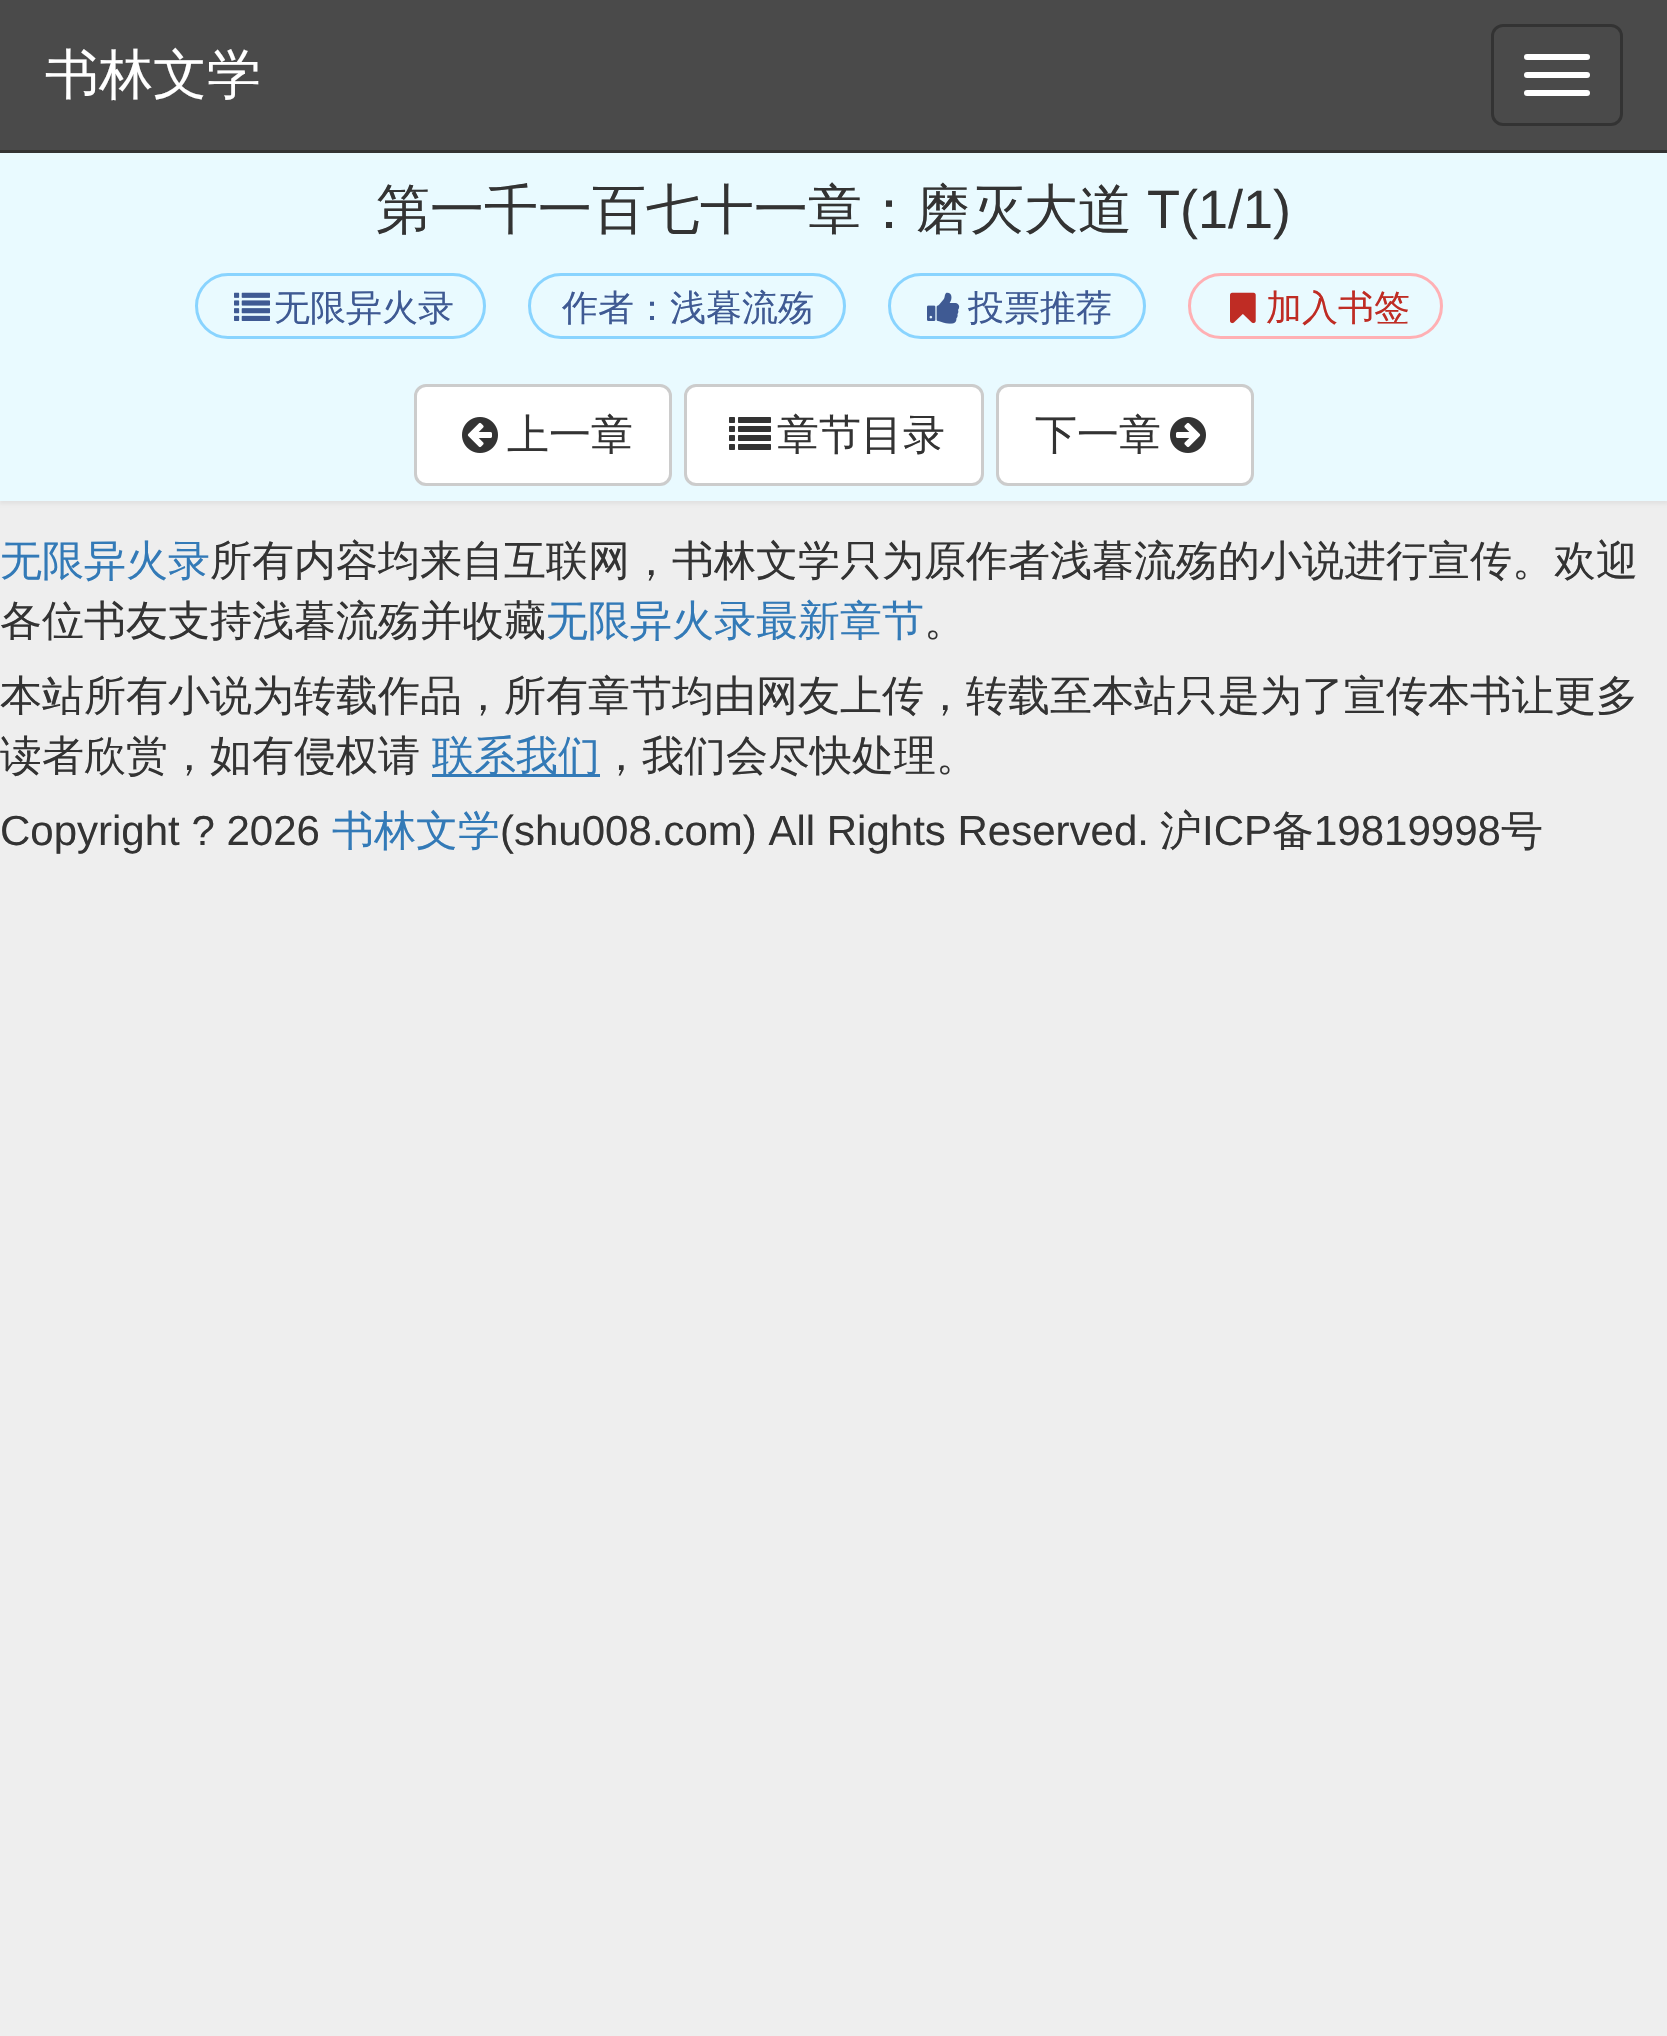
void draw(SkCanvas* canvas) {
  SkPaint paint;
  paint.setAntiAlias(true);
  auto face = [&](const char* family, int weight, float size, bool italic = false) {
    SkFontStyle style(weight, SkFontStyle::kNormal_Width,
      italic ? SkFontStyle::kItalic_Slant : SkFontStyle::kUpright_Slant);
    SkFont result(fontMgr->matchFamilyStyle(family, style), size);
    result.setSubpixel(true);
    return result;
  };
  auto paste = [&](const char* path, float x, float y, float w, float h) {
    auto image = SkImages::DeferredFromEncodedData(SkData::MakeFromFileName(path));
    canvas->drawImageRect(image, SkRect::MakeXYWH(x, y, w, h), SkSamplingOptions());
  };
  canvas->clear(0xffeeeeee);
  paint.setColor(0xff4a4a4a);
  canvas->drawRect(SkRect::MakeXYWH(0, 0, 1667, 150), paint);
  paint.setColor(0x0d000000);
  paint.setMaskFilter(SkMaskFilter::MakeBlur(kNormal_SkBlurStyle, 1.5f));
  canvas->drawRect(SkRect::MakeXYWH(0, 156, 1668, 348), paint);
  paint.setMaskFilter(nullptr);
  paint.setColor(0xff333333);
  canvas->drawRect(SkRect::MakeXYWH(0, 150, 1667, 3), paint);
  paint.setStroke(true);
  paint.setStrokeWidth(3);
  canvas->drawRoundRect(SkRect::MakeXYWH(1492.5f, 25.5f, 129, 99), 10.5f, 10.5f, paint);
  paint.setStroke(false);
  paint.setColor(0xffffffff);
  canvas->drawRoundRect(SkRect::MakeXYWH(1524, 54, 66, 6), 3, 3, paint);
  canvas->drawRoundRect(SkRect::MakeXYWH(1524, 72, 66, 6), 3, 3, paint);
  canvas->drawRoundRect(SkRect::MakeXYWH(1524, 90, 66, 6), 3, 3, paint);
  paint.setColor(0xffe9faff);
  canvas->drawRect(SkRect::MakeXYWH(0, 153, 1667, 348), paint);
  paint.setStroke(true);
  paint.setColor(0xff89d4ff);
  canvas->drawRoundRect(SkRect::MakeXYWH(196.5f, 274.5f, 288, 63), 31.5f, 31.5f, paint);
  paste("img/1.png", 234, 292, 36, 29);
  canvas->drawRoundRect(SkRect::MakeXYWH(529.5f, 274.5f, 315, 63), 31.5f, 31.5f, paint);
  canvas->drawRoundRect(SkRect::MakeXYWH(889.5f, 274.5f, 255, 63), 31.5f, 31.5f, paint);
  paste("img/2.png", 927, 292, 33, 32);
  paint.setColor(0xffffb0b4);
  canvas->drawRoundRect(SkRect::MakeXYWH(1189.5f, 274.5f, 252, 63), 31.5f, 31.5f, paint);
  paste("img/3.png", 1230, 292, 26, 32);
  paint.setStroke(false);
  paint.setColor(0xffffffff);
  canvas->drawRoundRect(SkRect::MakeXYWH(415.5f, 385.5f, 255, 99), 10.5f, 10.5f, paint);
  paint.setStroke(true);
  paint.setColor(0xffcccccc);
  canvas->drawRoundRect(SkRect::MakeXYWH(415.5f, 385.5f, 255, 99), 10.5f, 10.5f, paint);
  paste("img/4.png", 462, 417, 36, 36);
  paint.setStroke(false);
  paint.setColor(0xffffffff);
  canvas->drawRoundRect(SkRect::MakeXYWH(685.5f, 385.5f, 297, 99), 10.5f, 10.5f, paint);
  paint.setStroke(true);
  paint.setColor(0xffcccccc);
  canvas->drawRoundRect(SkRect::MakeXYWH(685.5f, 385.5f, 297, 99), 10.5f, 10.5f, paint);
  paste("img/5.png", 729, 417, 42, 33);
  paint.setStroke(false);
  paint.setColor(0xffffffff);
  canvas->drawRoundRect(SkRect::MakeXYWH(997.5f, 385.5f, 255, 99), 10.5f, 10.5f, paint);
  paint.setStroke(true);
  paint.setColor(0xffcccccc);
  canvas->drawRoundRect(SkRect::MakeXYWH(997.5f, 385.5f, 255, 99), 10.5f, 10.5f, paint);
  paste("img/6.png", 1170, 417, 36, 36);
  paint.setStroke(false);
  paint.setColor(0xff337ab7);
  canvas->drawRect(SkRect::MakeXYWH(432, 774, 168, 3), paint);
  auto f0 = face("WenQuanYi Zen Hei", 500, 54);
  paint.setColor(0xffffffff);
  canvas->drawString("书林文学", 45, 93, f0, paint);
  paint.setColor(0xff333333);
  canvas->drawString("第一千一百七十一章：磨灭大道", 376, 228, f0, paint);
  auto f1 = face("Liberation Sans", 400, 54);
  canvas->drawString("T(1/1)", 1147, 228, f1, paint);
  auto f2 = face("WenQuanYi Zen Hei", 500, 36);
  paint.setColor(0xff3f5a93);
  {
    const struct { const char* s; float x, y; } items[] = {
      {"无限异火录", 274, 320},
      {"作者：浅暮流殇", 562, 320},
      {"投票推荐", 968, 320},
    };
    for (auto [s, x, y] : items) {
      canvas->drawString(s, x, y, f2, paint);
    }
  }
  paint.setColor(0xffbf2c24);
  canvas->drawString("加入书签", 1266, 320, f2, paint);
  auto f3 = face("WenQuanYi Zen Hei", 500, 42);
  paint.setColor(0xff333333);
  {
    const struct { const char* s; float x, y; } items[] = {
      {"上一章", 507, 449},
      {"章节目录", 777, 449},
      {"下一章", 1035, 449},
    };
    for (auto [s, x, y] : items) {
      canvas->drawString(s, x, y, f3, paint);
    }
  }
  paint.setColor(0xff337ab7);
  canvas->drawString("无限异火录", 0, 575, f3, paint);
  paint.setColor(0xff333333);
  canvas->drawString("所有内容均来自互联网，书林文学只为原作者浅暮流殇的小说进行宣传。欢迎", 210, 575, f3, paint);
  canvas->drawString("各位书友支持浅暮流殇并收藏", 0, 635, f3, paint);
  paint.setColor(0xff337ab7);
  canvas->drawString("无限异火录最新章节", 546, 635, f3, paint);
  paint.setColor(0xff333333);
  {
    const struct { const char* s; float x, y; } items[] = {
      {"。", 924, 635},
      {"本站所有小说为转载作品，所有章节均由网友上传，转载至本站只是为了宣传本书让更多", 0, 710},
      {"读者欣赏，如有侵权请", 0, 770},
    };
    for (auto [s, x, y] : items) {
      canvas->drawString(s, x, y, f3, paint);
    }
  }
  paint.setColor(0xff337ab7);
  canvas->drawString("联系我们", 432, 770, f3, paint);
  paint.setColor(0xff333333);
  canvas->drawString("，我们会尽快处理。", 600, 770, f3, paint);
  auto f4 = face("Liberation Sans", 400, 42);
  canvas->drawString("Copyright ? 2026", 0, 845, f4, paint);
  paint.setColor(0xff337ab7);
  canvas->drawString("书林文学", 332, 845, f3, paint);
  paint.setColor(0xff333333);
  canvas->drawString("(shu008.com) All Rights Reserved.", 500, 845, f4, paint);
  canvas->drawString("沪", 1160, 845, f3, paint);
  canvas->drawString("ICP", 1202, 845, f4, paint);
  canvas->drawString("备", 1272, 845, f3, paint);
  canvas->drawString("19819998", 1314, 845, f4, paint);
  canvas->drawString("号", 1501, 845, f3, paint);
}
